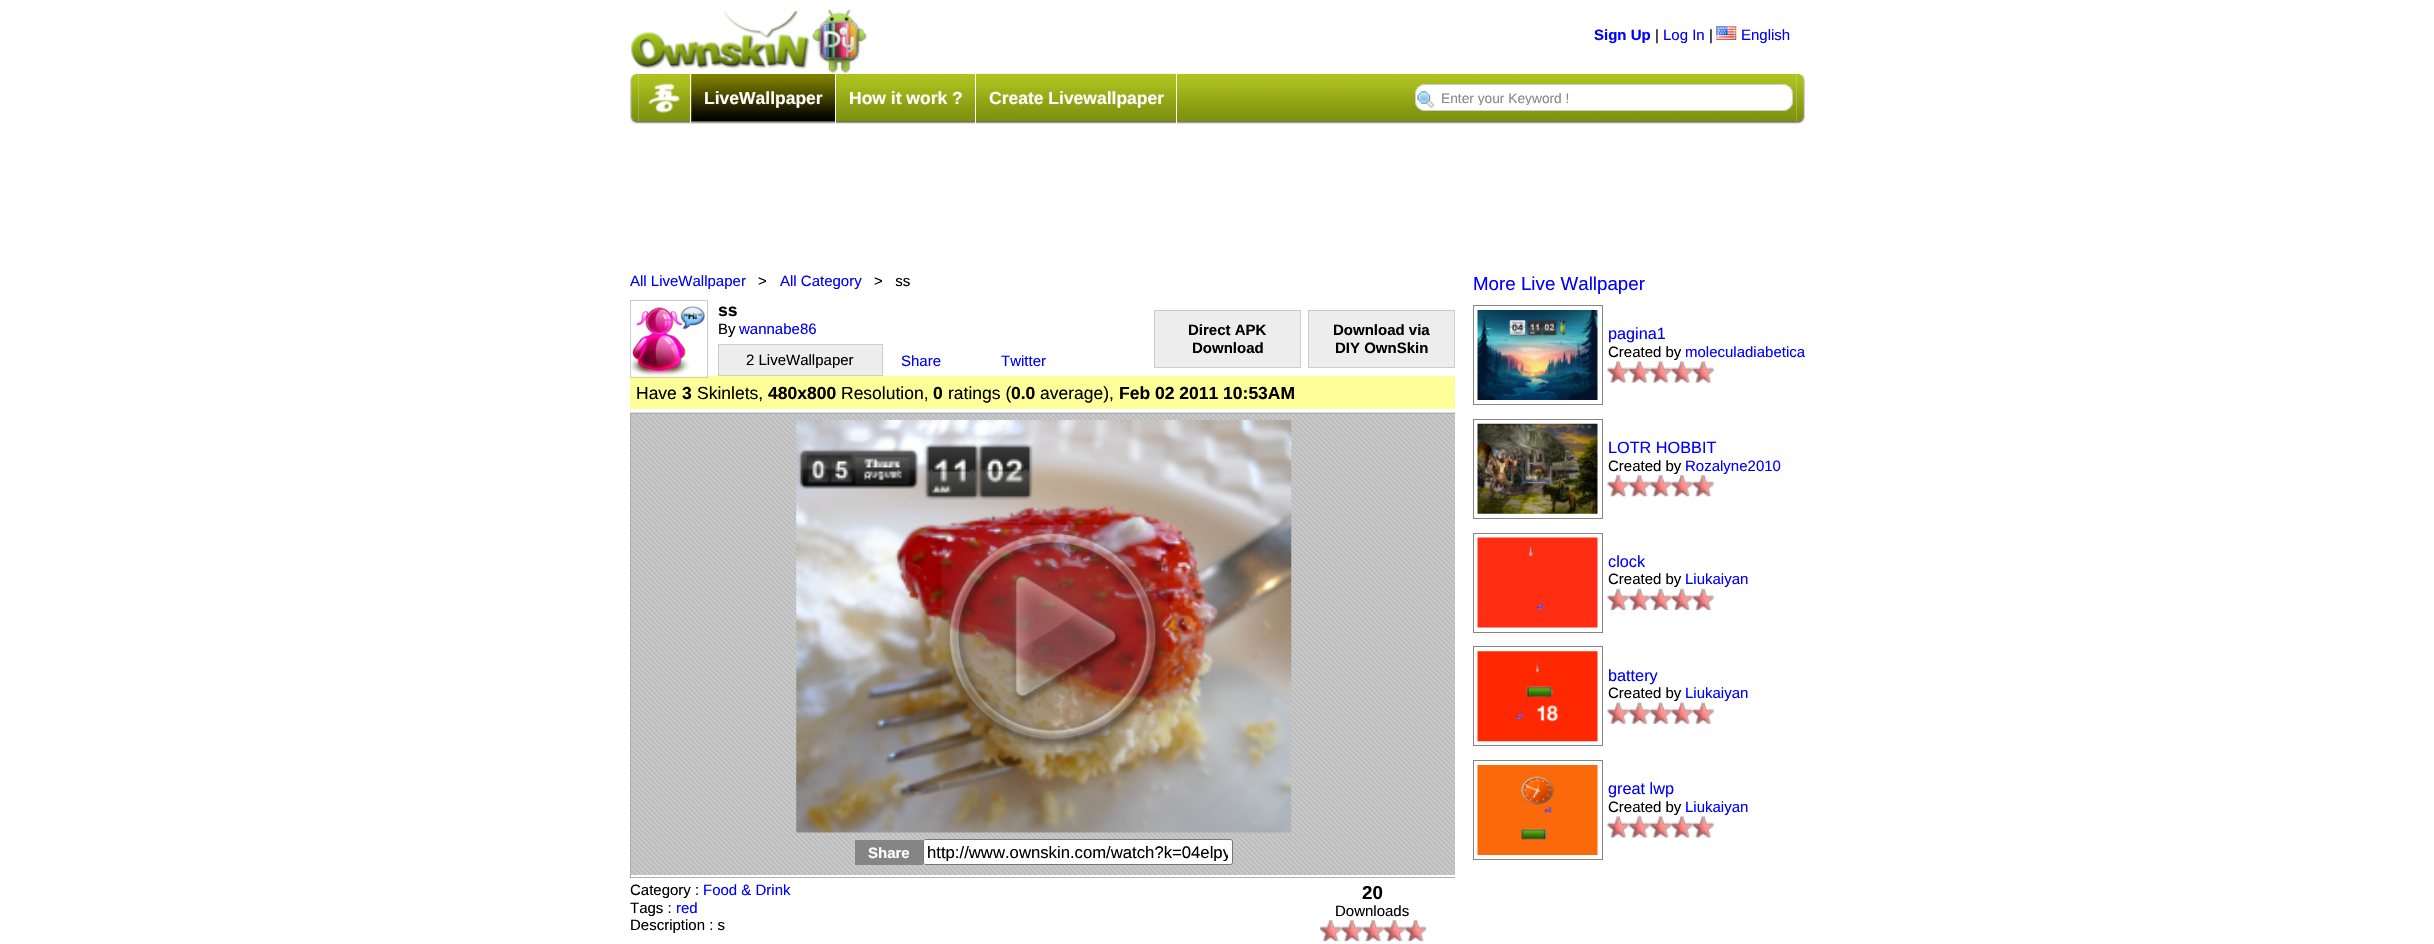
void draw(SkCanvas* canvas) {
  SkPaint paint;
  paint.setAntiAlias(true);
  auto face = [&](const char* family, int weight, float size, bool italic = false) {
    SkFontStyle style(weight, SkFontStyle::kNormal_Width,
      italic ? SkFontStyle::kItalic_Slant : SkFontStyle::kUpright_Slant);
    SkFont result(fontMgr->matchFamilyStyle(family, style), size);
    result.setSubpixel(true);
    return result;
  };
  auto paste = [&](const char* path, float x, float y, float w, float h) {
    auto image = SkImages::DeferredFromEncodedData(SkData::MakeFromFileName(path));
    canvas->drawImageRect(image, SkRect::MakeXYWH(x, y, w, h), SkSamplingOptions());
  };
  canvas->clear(0xffffffff);
  paste("img/1.png", 631, 9, 236, 64);
  paste("img/2.png", 1716, 26, 21, 14);
  paste("img/3.png", 630, 73, 9, 51);
  paste("img/4.png", 638, 73, 1159, 51);
  paint.setColor(0xffffffff);
  canvas->drawRect(SkRect::MakeXYWH(690, 74, 1, 49), paint);
  paste("img/5.png", 648, 83, 32, 30);
  canvas->drawRect(SkRect::MakeXYWH(835, 74, 1, 50), paint);
  paste("img/6.png", 691, 74, 144, 48);
  canvas->drawRect(SkRect::MakeXYWH(975, 74, 1, 50), paint);
  paste("img/7.png", 836, 121, 139, 1);
  canvas->drawRect(SkRect::MakeXYWH(1176, 74, 1, 50), paint);
  paste("img/8.png", 976, 73, 201, 49);
  canvas->drawRoundRect(SkRect::MakeXYWH(1415, 84, 378, 27), 10, 10, paint);
  paste("img/9.png", 1417, 91, 17, 17);
  paint.setStroke(true);
  paint.setStrokeWidth(1);
  paint.setColor(0xffcccccc);
  canvas->drawRoundRect(SkRect::MakeXYWH(1415.5f, 84.5f, 377, 26), 9.5f, 9.5f, paint);
  paste("img/10.png", 1796, 73, 9, 51);
  paint.setStroke(false);
  paint.setColor(0xffffff99);
  canvas->drawRect(SkRect::MakeXYWH(630, 376, 825, 33), paint);
  paint.setStroke(true);
  paint.setColor(0xffcccccc);
  canvas->drawRect(SkRect::MakeXYWH(630.5f, 300.5f, 77, 77), paint);
  paste("img/11.png", 631, 306, 76, 71);
  paint.setStroke(false);
  paint.setColor(0xffededed);
  canvas->drawRect(SkRect::MakeXYWH(718.5f, 344.5f, 164, 31), paint);
  paint.setStroke(true);
  paint.setColor(0xffcccccc);
  canvas->drawRect(SkRect::MakeXYWH(718.5f, 344.5f, 164, 31), paint);
  paint.setStroke(false);
  paint.setColor(0xffededed);
  canvas->drawRect(SkRect::MakeXYWH(1154.5f, 310.5f, 146, 57), paint);
  paint.setStroke(true);
  paint.setColor(0xffcccccc);
  canvas->drawRect(SkRect::MakeXYWH(1154.5f, 310.5f, 146, 57), paint);
  paint.setStroke(false);
  paint.setColor(0xffededed);
  canvas->drawRect(SkRect::MakeXYWH(1308.5f, 310.5f, 146, 57), paint);
  paint.setStroke(true);
  paint.setColor(0xffcccccc);
  canvas->drawRect(SkRect::MakeXYWH(1308.5f, 310.5f, 146, 57), paint);
  paste("img/12.png", 630, 412, 825, 463);
  canvas->save();
  canvas->clipRect(SkRect::MakeXYWH(630, 300, 825, 641));
  paint.setColor(0xffadadad);
  canvas->drawRect(SkRect::MakeXYWH(630.5f, 413.5f, 827, 464), paint);
  canvas->restore();
  paste("img/13.png", 796, 420, 496, 413);
  paste("img/14.png", 941, 525, 227, 226);
  paint.setStroke(false);
  paint.setColor(0xff858585);
  canvas->drawRect(SkRect::MakeXYWH(855, 840, 68, 25), paint);
  paint.setColor(0xffffffff);
  canvas->drawRoundRect(SkRect::MakeXYWH(923.5f, 839.5f, 309, 25), 2, 2, paint);
  paint.setStroke(true);
  paint.setColor(0xff767676);
  canvas->drawRoundRect(SkRect::MakeXYWH(923.5f, 839.5f, 309, 25), 2, 2, paint);
  paste("img/15.png", 1320, 920, 22, 22);
  paste("img/16.png", 1341, 920, 22, 22);
  paste("img/17.png", 1362, 920, 22, 22);
  paste("img/18.png", 1383, 920, 22, 22);
  paste("img/15.png", 1405, 920, 22, 22);
  paint.setColor(0xff858585);
  canvas->drawRect(SkRect::MakeXYWH(1473.5f, 305.5f, 129, 99), paint);
  paste("img/19.png", 1477, 310, 121, 90);
  paste("img/20.png", 1607, 361, 22, 22);
  paste("img/21.png", 1628, 361, 22, 22);
  paste("img/22.png", 1650, 361, 22, 22);
  paste("img/23.png", 1671, 361, 22, 22);
  paste("img/24.png", 1692, 361, 22, 22);
  canvas->drawRect(SkRect::MakeXYWH(1473.5f, 419.5f, 129, 99), paint);
  paste("img/25.png", 1477, 423, 121, 91);
  paste("img/26.png", 1607, 475, 22, 22);
  paste("img/27.png", 1628, 475, 22, 22);
  paste("img/28.png", 1650, 475, 22, 22);
  paste("img/29.png", 1671, 475, 22, 22);
  paste("img/30.png", 1692, 475, 22, 22);
  canvas->drawRect(SkRect::MakeXYWH(1473.5f, 533.5f, 129, 99), paint);
  paste("img/31.png", 1477, 537, 121, 91);
  paste("img/32.png", 1607, 588, 22, 22);
  paste("img/33.png", 1628, 588, 22, 22);
  paste("img/34.png", 1650, 588, 22, 22);
  paste("img/35.png", 1671, 588, 22, 22);
  paste("img/36.png", 1692, 588, 22, 22);
  canvas->drawRect(SkRect::MakeXYWH(1473.5f, 646.5f, 129, 99), paint);
  paste("img/37.png", 1477, 651, 121, 91);
  paste("img/38.png", 1607, 702, 22, 22);
  paste("img/39.png", 1628, 702, 22, 22);
  paste("img/40.png", 1650, 702, 22, 22);
  paste("img/41.png", 1671, 702, 22, 22);
  paste("img/42.png", 1692, 702, 22, 22);
  canvas->drawRect(SkRect::MakeXYWH(1473.5f, 760.5f, 129, 99), paint);
  paste("img/43.png", 1477, 765, 121, 90);
  paste("img/20.png", 1607, 816, 22, 22);
  paste("img/21.png", 1628, 816, 22, 22);
  paste("img/22.png", 1650, 816, 22, 22);
  paste("img/23.png", 1671, 816, 22, 22);
  paste("img/24.png", 1692, 816, 22, 22);
  auto f0 = face("Liberation Sans", 700, 15);
  paint.setStroke(false);
  paint.setColor(0xff0000ff);
  canvas->drawString("Sign Up", 1594, 40, f0, paint);
  auto f1 = face("Liberation Sans", 400, 15);
  paint.setColor(0xff000000);
  canvas->drawString("|", 1655, 40, f1, paint);
  paint.setColor(0xff0000ff);
  canvas->drawString("Log In", 1663, 40, f1, paint);
  paint.setColor(0xff000000);
  canvas->drawString("|", 1709, 40, f1, paint);
  paint.setColor(0xff0000ff);
  canvas->drawString("English", 1741, 40, f1, paint);
  auto f2 = face("Liberation Sans", 700, 17.5f);
  paint.setColor(0xffffffff);
  {
    const struct { const char* s; float x, y; } items[] = {
      {"LiveWallpaper", 704, 104},
      {"How it work ?", 849, 104},
      {"Create Livewallpaper", 989, 104},
    };
    for (auto [s, x, y] : items) {
      canvas->drawString(s, x, y, f2, paint);
    }
  }
  canvas->save();
  canvas->clipRect(SkRect::MakeXYWH(1441, 90, 350, 15));
  auto f3 = face("Liberation Sans", 400, 13.75f);
  paint.setColor(0xff888888);
  canvas->drawString("Enter your Keyword !", 1441, 103, f3, paint);
  canvas->restore();
  paint.setColor(0xff0000ff);
  canvas->drawString("All LiveWallpaper", 630, 286, f1, paint);
  paint.setColor(0xff000000);
  canvas->drawString(">", 758, 286, f1, paint);
  paint.setColor(0xff0000ff);
  canvas->drawString("All Category", 780, 286, f1, paint);
  paint.setColor(0xff000000);
  canvas->drawString(">   ss", 874, 286, f1, paint);
  canvas->drawString("ss", 718, 316, f2, paint);
  canvas->drawString("By", 718, 334, f1, paint);
  paint.setColor(0xff0000ff);
  canvas->drawString("wannabe86", 739, 334, f1, paint);
  paint.setColor(0xff000000);
  canvas->drawString("2 LiveWallpaper", 746, 365, f1, paint);
  {
    const struct { const char* s; float x, y; } items[] = {
      {"Direct APK", 1188, 335},
      {"Download", 1192, 353},
      {"Download via", 1333, 335},
      {"DIY OwnSkin", 1335, 353},
    };
    for (auto [s, x, y] : items) {
      canvas->drawString(s, x, y, f0, paint);
    }
  }
  paint.setColor(0xff0000ff);
  canvas->drawString("Share", 901, 366, f1, paint);
  canvas->drawString("Twitter", 1001, 366, f1, paint);
  auto f4 = face("Liberation Sans", 400, 17.5f);
  paint.setColor(0xff000000);
  canvas->drawString("Have", 636, 399, f4, paint);
  canvas->drawString("3", 682, 399, f2, paint);
  canvas->drawString("Skinlets,", 697, 399, f4, paint);
  canvas->drawString("480x800", 768, 399, f2, paint);
  canvas->drawString("Resolution,", 841, 399, f4, paint);
  canvas->drawString("0", 933, 399, f2, paint);
  canvas->drawString("ratings (", 948, 399, f4, paint);
  canvas->drawString("0.0", 1011, 399, f2, paint);
  canvas->drawString("average),", 1040, 399, f4, paint);
  canvas->drawString("Feb 02 2011 10:53AM", 1119, 399, f2, paint);
  paint.setColor(0xffffffff);
  canvas->drawString("Share", 868, 858, f0, paint);
  canvas->save();
  canvas->clipRect(SkRect::MakeXYWH(928, 843, 300, 18));
  auto f5 = face("Liberation Sans", 400, 16.7f);
  paint.setColor(0xff000000);
  canvas->drawString("http://www.ownskin.com/watch?k=04elpy", 927, 858, f5, paint);
  canvas->restore();
  canvas->drawString("Category :", 630, 895, f1, paint);
  paint.setColor(0xff0000ff);
  canvas->drawString("Food & Drink", 703, 895, f1, paint);
  paint.setColor(0xff000000);
  canvas->drawString("Tags :", 630, 913, f1, paint);
  paint.setColor(0xff0000ff);
  canvas->drawString("red", 676, 913, f1, paint);
  paint.setColor(0xff000000);
  canvas->drawString("Description : s", 630, 930, f1, paint);
  auto f6 = face("Liberation Sans", 700, 18.75f);
  canvas->drawString("20", 1362, 899, f6, paint);
  canvas->drawString("Downloads", 1335, 916, f1, paint);
  auto f7 = face("Liberation Sans", 400, 18.75f);
  paint.setColor(0xff0000ff);
  canvas->drawString("More Live Wallpaper", 1473, 290, f7, paint);
  auto f8 = face("Liberation Sans", 400, 16.25f);
  canvas->drawString("pagina1", 1608, 339, f8, paint);
  paint.setColor(0xff000000);
  canvas->drawString("Created by", 1608, 357, f1, paint);
  paint.setColor(0xff0000ff);
  canvas->drawString("moleculadiabetica", 1685, 357, f1, paint);
  canvas->drawString("LOTR HOBBIT", 1608, 453, f8, paint);
  paint.setColor(0xff000000);
  canvas->drawString("Created by", 1608, 471, f1, paint);
  paint.setColor(0xff0000ff);
  canvas->drawString("Rozalyne2010", 1685, 471, f1, paint);
  canvas->drawString("clock", 1608, 567, f8, paint);
  paint.setColor(0xff000000);
  canvas->drawString("Created by", 1608, 584, f1, paint);
  paint.setColor(0xff0000ff);
  canvas->drawString("Liukaiyan", 1685, 584, f1, paint);
  canvas->drawString("battery", 1608, 681, f8, paint);
  paint.setColor(0xff000000);
  canvas->drawString("Created by", 1608, 698, f1, paint);
  paint.setColor(0xff0000ff);
  canvas->drawString("Liukaiyan", 1685, 698, f1, paint);
  canvas->drawString("great lwp", 1608, 794, f8, paint);
  paint.setColor(0xff000000);
  canvas->drawString("Created by", 1608, 812, f1, paint);
  paint.setColor(0xff0000ff);
  canvas->drawString("Liukaiyan", 1685, 812, f1, paint);
}
